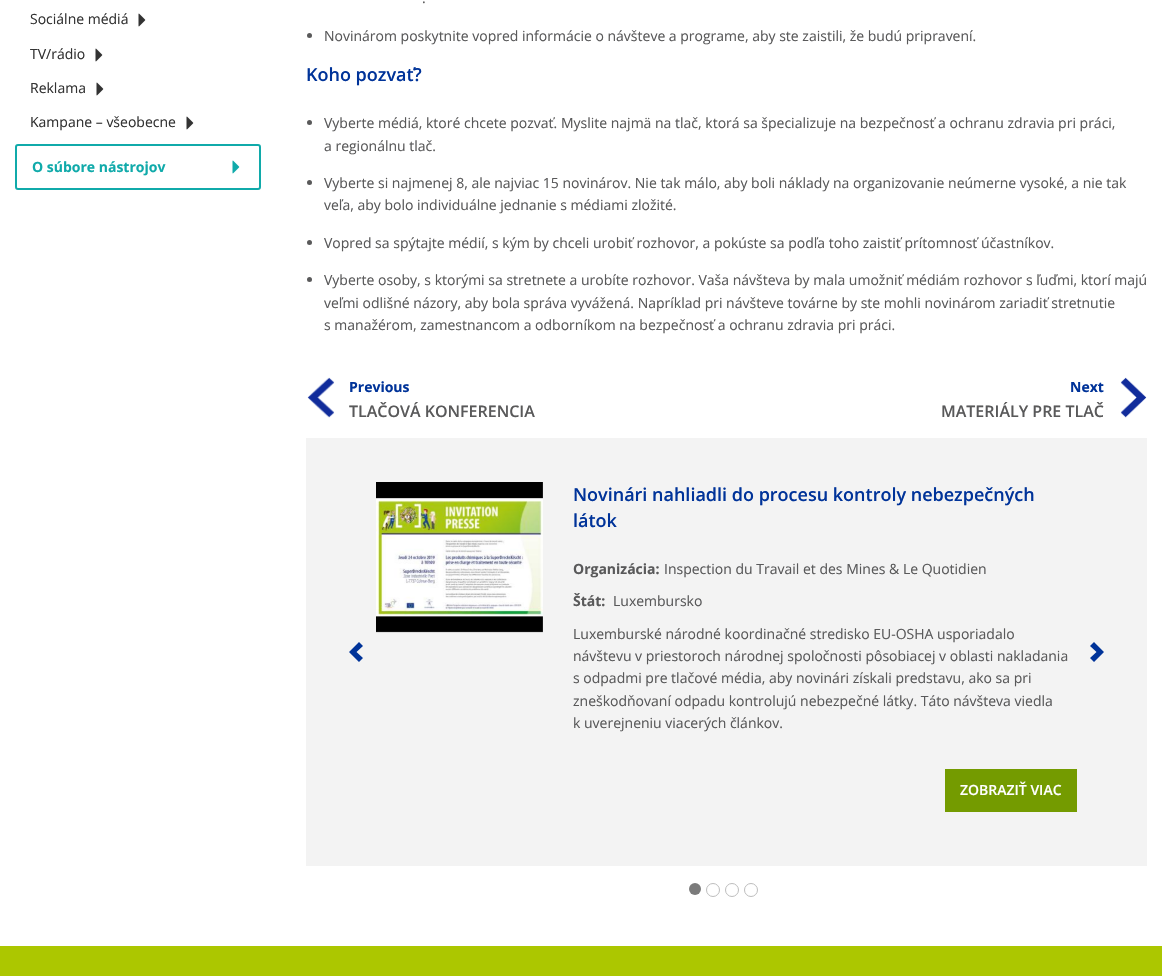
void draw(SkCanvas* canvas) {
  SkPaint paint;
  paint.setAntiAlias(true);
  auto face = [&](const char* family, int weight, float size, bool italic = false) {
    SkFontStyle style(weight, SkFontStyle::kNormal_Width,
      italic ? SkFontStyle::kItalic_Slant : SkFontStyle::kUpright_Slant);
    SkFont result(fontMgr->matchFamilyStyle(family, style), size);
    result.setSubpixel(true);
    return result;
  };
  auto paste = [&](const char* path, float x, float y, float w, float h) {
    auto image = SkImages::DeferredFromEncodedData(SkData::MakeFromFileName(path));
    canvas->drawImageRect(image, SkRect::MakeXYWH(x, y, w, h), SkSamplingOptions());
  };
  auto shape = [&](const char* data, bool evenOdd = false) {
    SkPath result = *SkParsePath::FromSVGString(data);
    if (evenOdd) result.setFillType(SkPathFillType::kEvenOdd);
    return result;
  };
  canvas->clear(0xffffffff);
  paste("img/1.png", 138, 13, 8, 14);
  paste("img/1.png", 95, 48, 8, 14);
  paste("img/1.png", 96, 82, 8, 14);
  paste("img/1.png", 186, 116, 8, 14);
  paint.setStroke(true);
  paint.setStrokeWidth(2);
  paint.setColor(0xff10aaaa);
  canvas->drawRoundRect(SkRect::MakeXYWH(16, 145, 244, 44), 2, 2, paint);
  paste("img/2.png", 232, 160, 8, 14);
  paint.setStroke(false);
  paint.setColor(0xff59595a);
  canvas->drawCircle(309.5f, 35.5f, 2.5f, paint);
  canvas->drawCircle(309.5f, 122.5f, 2.5f, paint);
  canvas->drawCircle(309.5f, 182.5f, 2.5f, paint);
  canvas->drawCircle(309.5f, 242.5f, 2.5f, paint);
  canvas->drawCircle(309.5f, 279.5f, 2.5f, paint);
  paste("img/3.png", 307, 377, 28, 41);
  paste("img/4.png", 1120, 377, 27, 41);
  paint.setColor(0xfff3f3f3);
  canvas->drawRect(SkRect::MakeXYWH(306, 438, 841, 428), paint);
  paint.setColor(0xff003399);
  canvas->drawPath(shape("M359 642L349 652L359 662L363 658L356.5 652L363 646Z"), paint);
  paste("img/5.png", 376, 482, 167, 151);
  paint.setColor(0xff749b00);
  canvas->drawRect(SkRect::MakeXYWH(945, 769, 132, 43), paint);
  paint.setColor(0xff7b7b7b);
  canvas->drawCircle(695, 889, 6, paint);
  paint.setStroke(true);
  paint.setStrokeWidth(1);
  paint.setColor(0xffbdbdbd);
  canvas->drawCircle(713, 890, 6.5f, paint);
  canvas->drawCircle(732, 890, 6.5f, paint);
  canvas->drawCircle(751, 890, 6.5f, paint);
  paint.setStroke(false);
  paint.setColor(0xff003399);
  canvas->drawPath(shape("M1094 642L1090 646L1096.5 652L1090 658L1094 662L1104 652Z"), paint);
  paint.setColor(0xffacc700);
  canvas->drawRect(SkRect::MakeXYWH(0, 946, 1162, 30), paint);
  auto f0 = face("Open Sans", 400, 14);
  paint.setColor(0xff333333);
  {
    const struct { const char* s; float x, y; } items[] = {
      {"Sociálne médiá", 30, 24},
      {"TV/rádio", 30, 59},
      {"Reklama", 30, 93},
      {"Kampane – všeobecne", 30, 127},
    };
    for (auto [s, x, y] : items) {
      canvas->drawString(s, x, y, f0, paint);
    }
  }
  auto f1 = face("Open Sans", 700, 14);
  paint.setColor(0xff10aaaa);
  canvas->drawString("O súbore nástrojov", 32, 172, f1, paint);
  paint.setColor(0xff59595a);
  canvas->drawString(".", 422, 3, f0, paint);
  canvas->drawString("Novinárom poskytnite vopred informácie o návšteve a programe, aby ste zaistili, že budú pripravení.", 324, 41, f0, paint);
  auto f2 = face("Open Sans", 600, 18);
  paint.setColor(0xff003399);
  canvas->drawString("Koho pozvať?", 306, 81, f2, paint);
  paint.setColor(0xff59595a);
  {
    const struct { const char* s; float x, y; } items[] = {
      {"Vyberte médiá, ktoré chcete pozvať. Myslite najmä na tlač, ktorá sa špecializuje na bezpečnosť a ochranu zdravia pri práci,", 324, 128},
      {"a regionálnu tlač.", 324, 151},
      {"Vyberte si najmenej 8, ale najviac 15 novinárov. Nie tak málo, aby boli náklady na organizovanie neúmerne vysoké, a nie tak", 324, 188},
      {"veľa, aby bolo individuálne jednanie s médiami zložité.", 324, 210},
      {"Vopred sa spýtajte médií, s kým by chceli urobiť rozhovor, a pokúste sa podľa toho zaistiť prítomnosť účastníkov.", 324, 248},
      {"Vyberte osoby, s ktorými sa stretnete a urobíte rozhovor. Vaša návšteva by mala umožniť médiám rozhovor s ľuďmi, ktorí majú", 324, 285},
      {"veľmi odlišné názory, aby bola správa vyvážená. Napríklad pri návšteve továrne by ste mohli novinárom zariadiť stretnutie", 324, 308},
      {"s manažérom, zamestnancom a odborníkom na bezpečnosť a ochranu zdravia pri práci.", 324, 330},
    };
    for (auto [s, x, y] : items) {
      canvas->drawString(s, x, y, f0, paint);
    }
  }
  paint.setColor(0xff003399);
  canvas->drawString("Previous", 349, 392, f1, paint);
  auto f3 = face("Open Sans", 600, 16);
  paint.setColor(0xff59595a);
  canvas->drawString("TLAČOVÁ KONFERENCIA", 349, 417, f3, paint);
  paint.setColor(0xff003399);
  canvas->drawString("Next", 1070, 392, f1, paint);
  paint.setColor(0xff59595a);
  canvas->drawString("MATERIÁLY PRE TLAČ", 941, 417, f3, paint);
  paint.setColor(0xff003399);
  canvas->drawString("Novinári nahliadli do procesu kontroly nebezpečných", 573, 501, f2, paint);
  canvas->drawString("látok", 573, 527, f2, paint);
  paint.setColor(0xff59595a);
  canvas->drawString("Organizácia:", 573, 574, f1, paint);
  canvas->drawString("Inspection du Travail et des Mines & Le Quotidien", 664, 574, f0, paint);
  canvas->drawString("Štát:", 573, 606, f1, paint);
  {
    const struct { const char* s; float x, y; } items[] = {
      {"Luxembursko", 613, 606},
      {"Luxemburské národné koordinačné stredisko EU-OSHA usporiadalo", 573, 639},
      {"návštevu v priestoroch národnej spoločnosti pôsobiacej v oblasti nakladania", 573, 661},
      {"s odpadmi pre tlačové média, aby novinári získali predstavu, ako sa pri", 573, 683},
      {"zneškodňovaní odpadu kontrolujú nebezpečné látky. Táto návšteva viedla", 573, 706},
      {"k uverejneniu viacerých článkov.", 573, 728},
    };
    for (auto [s, x, y] : items) {
      canvas->drawString(s, x, y, f0, paint);
    }
  }
  auto f4 = face("Open Sans", 600, 14);
  paint.setColor(0xffffffff);
  canvas->drawString("ZOBRAZIŤ VIAC", 960, 795, f4, paint);
}
